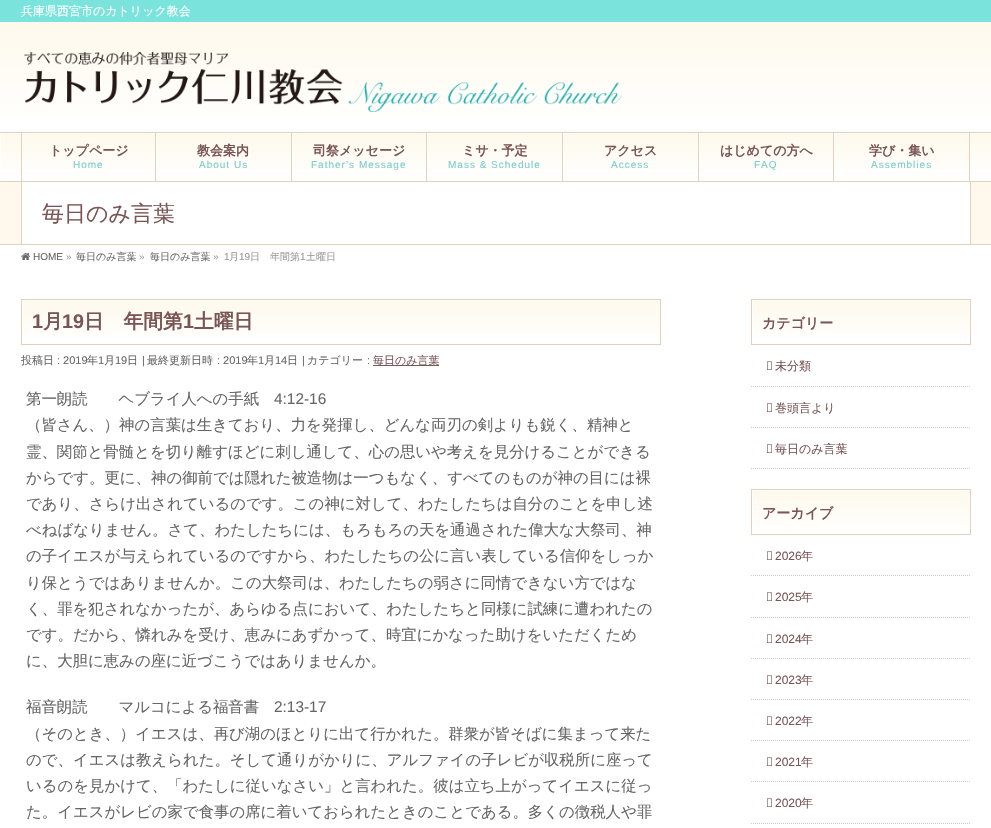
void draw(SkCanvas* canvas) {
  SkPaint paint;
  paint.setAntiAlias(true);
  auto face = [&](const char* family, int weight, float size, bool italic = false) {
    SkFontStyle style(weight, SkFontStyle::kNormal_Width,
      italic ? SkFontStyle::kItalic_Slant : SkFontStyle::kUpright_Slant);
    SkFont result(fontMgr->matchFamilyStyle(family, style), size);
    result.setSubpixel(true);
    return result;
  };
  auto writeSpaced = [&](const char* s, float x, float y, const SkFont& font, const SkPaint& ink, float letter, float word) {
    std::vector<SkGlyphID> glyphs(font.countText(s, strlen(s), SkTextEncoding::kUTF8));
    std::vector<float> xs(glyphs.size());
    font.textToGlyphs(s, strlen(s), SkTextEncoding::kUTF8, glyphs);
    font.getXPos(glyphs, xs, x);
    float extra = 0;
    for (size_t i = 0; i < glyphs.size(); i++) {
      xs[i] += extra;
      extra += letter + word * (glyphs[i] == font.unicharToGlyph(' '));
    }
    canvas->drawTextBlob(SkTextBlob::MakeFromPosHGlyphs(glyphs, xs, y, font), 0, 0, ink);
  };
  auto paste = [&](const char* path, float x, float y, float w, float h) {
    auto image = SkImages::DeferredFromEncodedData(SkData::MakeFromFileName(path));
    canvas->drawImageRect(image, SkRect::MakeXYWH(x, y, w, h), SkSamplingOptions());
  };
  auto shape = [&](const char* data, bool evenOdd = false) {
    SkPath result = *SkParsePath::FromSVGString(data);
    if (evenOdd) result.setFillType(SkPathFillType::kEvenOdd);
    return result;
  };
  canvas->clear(0xffffffff);
  paint.setColor(0xff7ae3db);
  canvas->drawRect(SkRect::MakeXYWH(0, 0, 991, 22), paint);
  {
    const SkColor colors[] = {0xfffef9ec, 0xffffffff};
    const float stops[] = {0, 1};
    const SkPoint ends[] = {{496, 22}, {496, 132}};
    paint.setShader(SkGradientShader::MakeLinear(ends, colors, stops, 2, SkTileMode::kClamp));
    paint.setAlpha(255);
  }
  canvas->drawRect(SkRect::MakeXYWH(0, 22, 991, 96), paint);
  paste("img/1.png", 24, 52, 598, 60);
  {
    const SkColor colors[] = {0xfffef9ec, 0xffffffff};
    const float stops[] = {0, 1};
    const SkPoint ends[] = {{496, 133}, {496, 181}};
    paint.setShader(SkGradientShader::MakeLinear(ends, colors, stops, 2, SkTileMode::kClamp));
    paint.setAlpha(255);
  }
  canvas->drawRect(SkRect::MakeXYWH(1, 134, 990, 41), paint);
  paint.setShader(nullptr);
  paint.setColor(0xffe3d1be);
  canvas->drawRect(SkRect::MakeXYWH(0, 132, 991, 1), paint);
  canvas->drawRect(SkRect::MakeXYWH(0, 181, 991, 1), paint);
  canvas->save();
  canvas->clipRect(SkRect::MakeXYWH(21, 133, 135, 48));
  paint.setColor(0xffffffff);
  canvas->drawPath(shape("M-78 34H255V280H-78ZM22 134H157V182H22Z", true), paint);
  canvas->restore();
  paint.setColor(0xffe3d1be);
  canvas->drawRect(SkRect::MakeXYWH(155, 133, 1, 48), paint);
  canvas->drawRect(SkRect::MakeXYWH(21, 133, 1, 48), paint);
  canvas->save();
  canvas->clipRect(SkRect::MakeXYWH(156, 133, 136, 48));
  paint.setColor(0xffffffff);
  canvas->drawPath(shape("M57 34H391V280H57ZM157 134H293V182H157Z", true), paint);
  canvas->restore();
  paint.setColor(0xffe3d1be);
  canvas->drawRect(SkRect::MakeXYWH(291, 133, 1, 48), paint);
  canvas->save();
  canvas->clipRect(SkRect::MakeXYWH(292, 133, 135, 48));
  paint.setColor(0xffffffff);
  canvas->drawPath(shape("M193 34H526V280H193ZM293 134H428V182H293Z", true), paint);
  canvas->restore();
  paint.setColor(0xffe3d1be);
  canvas->drawRect(SkRect::MakeXYWH(426, 133, 1, 48), paint);
  canvas->save();
  canvas->clipRect(SkRect::MakeXYWH(427, 133, 136, 48));
  paint.setColor(0xffffffff);
  canvas->drawPath(shape("M328 34H662V280H328ZM428 134H564V182H428Z", true), paint);
  canvas->restore();
  paint.setColor(0xffe3d1be);
  canvas->drawRect(SkRect::MakeXYWH(562, 133, 1, 48), paint);
  canvas->save();
  canvas->clipRect(SkRect::MakeXYWH(563, 133, 136, 48));
  paint.setColor(0xffffffff);
  canvas->drawPath(shape("M464 34H798V280H464ZM564 134H700V182H564Z", true), paint);
  canvas->restore();
  paint.setColor(0xffe3d1be);
  canvas->drawRect(SkRect::MakeXYWH(698, 133, 1, 48), paint);
  canvas->save();
  canvas->clipRect(SkRect::MakeXYWH(699, 133, 135, 48));
  paint.setColor(0xffffffff);
  canvas->drawPath(shape("M600 34H933V280H600ZM700 134H835V182H700Z", true), paint);
  canvas->restore();
  paint.setColor(0xffe3d1be);
  canvas->drawRect(SkRect::MakeXYWH(833, 133, 1, 48), paint);
  canvas->save();
  canvas->clipRect(SkRect::MakeXYWH(834, 133, 136, 48));
  paint.setColor(0xffffffff);
  canvas->drawPath(shape("M735 34H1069V280H735ZM835 134H971V182H835Z", true), paint);
  canvas->restore();
  {
    const struct { float x, y, w, h; SkColor color; } items[] = {
      {969, 133, 1, 48, 0xffe3d1be},
      {0, 182, 991, 62, 0xfffef9ec},
      {0, 244, 991, 1, 0xffe3d1be},
      {22, 182, 948, 62, 0xffffffff},
      {970, 182, 1, 62, 0xffe3d1be},
      {21, 182, 1, 62, 0xffe3d1be},
    };
    for (auto [x, y, w, h, color] : items) {
      paint.setColor(color);
      canvas->drawRect(SkRect::MakeXYWH(x, y, w, h), paint);
    }
  }
  paste("img/2.png", 21, 252, 10, 8);
  {
    const SkColor colors[] = {0xfffef9ec, 0xffffffff};
    const float stops[] = {0, 1};
    const SkPoint ends[] = {{341, 300}, {341, 344}};
    paint.setShader(SkGradientShader::MakeLinear(ends, colors, stops, 2, SkTileMode::kClamp));
    paint.setAlpha(255);
  }
  canvas->drawRect(SkRect::MakeXYWH(23, 301, 637, 37), paint);
  paint.setStroke(true);
  paint.setStrokeWidth(1);
  paint.setShader(nullptr);
  paint.setColor(0xffe3d1be);
  canvas->drawRect(SkRect::MakeXYWH(21.5f, 299.5f, 639, 45), paint);
  paint.setStroke(false);
  paint.setColor(0xff7a5555);
  canvas->drawRect(SkRect::MakeXYWH(373, 365, 66, 1), paint);
  {
    const SkColor colors[] = {0xfffef9ec, 0xffffffff};
    const float stops[] = {0, 1};
    const SkPoint ends[] = {{861, 300}, {861, 344}};
    paint.setShader(SkGradientShader::MakeLinear(ends, colors, stops, 2, SkTileMode::kClamp));
    paint.setAlpha(255);
  }
  canvas->drawRect(SkRect::MakeXYWH(753, 301, 217, 37), paint);
  paint.setStroke(true);
  paint.setShader(nullptr);
  paint.setColor(0xffe3d1be);
  canvas->drawRect(SkRect::MakeXYWH(751.5f, 299.5f, 219, 45), paint);
  paint.setColor(0xffcccccc);
  paint.setPathEffect(SkDashPathEffect::Make({{1, 1}}, 0));
  canvas->drawPath(shape("M751 386.5H971"), paint);
  paint.setPathEffect(nullptr);
  paste("img/3.png", 767, 361, 5, 9);
  paint.setPathEffect(SkDashPathEffect::Make({{1, 1}}, 0));
  canvas->drawPath(shape("M751 427.5H971"), paint);
  paint.setPathEffect(nullptr);
  paste("img/3.png", 767, 403, 5, 9);
  paint.setPathEffect(SkDashPathEffect::Make({{1, 1}}, 0));
  canvas->drawPath(shape("M751 468.5H971"), paint);
  paint.setPathEffect(nullptr);
  paste("img/3.png", 767, 444, 5, 9);
  paint.setStroke(false);
  {
    const SkColor colors[] = {0xfffef9ec, 0xffffffff};
    const float stops[] = {0, 1};
    const SkPoint ends[] = {{861, 490}, {861, 534}};
    paint.setShader(SkGradientShader::MakeLinear(ends, colors, stops, 2, SkTileMode::kClamp));
    paint.setAlpha(255);
  }
  canvas->drawRect(SkRect::MakeXYWH(753, 491, 217, 37), paint);
  paint.setStroke(true);
  paint.setShader(nullptr);
  paint.setColor(0xffe3d1be);
  canvas->drawRect(SkRect::MakeXYWH(751.5f, 489.5f, 219, 45), paint);
  paint.setColor(0xffcccccc);
  paint.setPathEffect(SkDashPathEffect::Make({{1, 1}}, 0));
  canvas->drawPath(shape("M751 575.5H971"), paint);
  paint.setPathEffect(nullptr);
  paste("img/3.png", 767, 551, 5, 9);
  paint.setPathEffect(SkDashPathEffect::Make({{1, 1}}, 0));
  canvas->drawPath(shape("M751 617.5H971"), paint);
  paint.setPathEffect(nullptr);
  paste("img/3.png", 767, 592, 5, 9);
  paint.setPathEffect(SkDashPathEffect::Make({{1, 1}}, 0));
  canvas->drawPath(shape("M751 658.5H971"), paint);
  paint.setPathEffect(nullptr);
  paste("img/3.png", 767, 634, 5, 9);
  paint.setPathEffect(SkDashPathEffect::Make({{1, 1}}, 0));
  canvas->drawPath(shape("M751 699.5H971"), paint);
  paint.setPathEffect(nullptr);
  paste("img/3.png", 767, 675, 5, 9);
  paint.setPathEffect(SkDashPathEffect::Make({{1, 1}}, 0));
  canvas->drawPath(shape("M751 740.5H971"), paint);
  paint.setPathEffect(nullptr);
  paste("img/3.png", 767, 716, 5, 9);
  paint.setPathEffect(SkDashPathEffect::Make({{1, 1}}, 0));
  canvas->drawPath(shape("M751 781.5H971"), paint);
  paint.setPathEffect(nullptr);
  paste("img/3.png", 767, 757, 5, 9);
  paint.setPathEffect(SkDashPathEffect::Make({{1, 1}}, 0));
  canvas->drawPath(shape("M751 823.5H971"), paint);
  paint.setPathEffect(nullptr);
  paste("img/3.png", 767, 798, 5, 9);
  auto f0 = face("WenQuanYi Zen Hei", 500, 12);
  paint.setStroke(false);
  paint.setColor(0xffffffff);
  canvas->drawString("兵庫県西宮市のカトリック教会", 21, 15, f0, paint);
  auto f1 = face("WenQuanYi Zen Hei", 700, 13);
  paint.setColor(0xff7a5555);
  canvas->drawString("トップページ", 49, 155, f1, paint);
  auto f2 = face("Liberation Sans", 400, 10);
  paint.setColor(0xff7bcecc);
  writeSpaced("Home", 73, 168, f2, paint, 1, 0);
  paint.setColor(0xff7a5555);
  canvas->drawString("教会案内", 197, 155, f1, paint);
  paint.setColor(0xff7bcecc);
  writeSpaced("About Us", 199, 168, f2, paint, 1, 0);
  paint.setColor(0xff7a5555);
  canvas->drawString("司祭メッセージ", 313, 155, f1, paint);
  paint.setColor(0xff7bcecc);
  writeSpaced("Father’s Message", 311, 168, f2, paint, 1, 0);
  paint.setColor(0xff7a5555);
  canvas->drawString("ミサ・予定", 462, 155, f1, paint);
  paint.setColor(0xff7bcecc);
  writeSpaced("Mass & Schedule", 448, 168, f2, paint, 1, 0);
  paint.setColor(0xff7a5555);
  canvas->drawString("アクセス", 604, 155, f1, paint);
  paint.setColor(0xff7bcecc);
  writeSpaced("Access", 611, 168, f2, paint, 1, 0);
  paint.setColor(0xff7a5555);
  canvas->drawString("はじめての方へ", 720, 155, f1, paint);
  paint.setColor(0xff7bcecc);
  writeSpaced("FAQ", 754, 168, f2, paint, 1, 0);
  paint.setColor(0xff7a5555);
  canvas->drawString("学び・集い", 869, 155, f1, paint);
  paint.setColor(0xff7bcecc);
  writeSpaced("Assemblies", 871, 168, f2, paint, 1, 0);
  auto f3 = face("WenQuanYi Zen Hei", 500, 22);
  paint.setColor(0xff7a5555);
  canvas->drawString("毎日のみ言葉", 42, 221, f3, paint);
  paint.setColor(0xff666666);
  canvas->drawString("HOME", 33, 260, f2, paint);
  paint.setColor(0xff999999);
  canvas->drawString("»", 66, 260, f2, paint);
  auto f4 = face("WenQuanYi Zen Hei", 500, 10);
  paint.setColor(0xff666666);
  canvas->drawString("毎日のみ言葉", 76, 260, f4, paint);
  paint.setColor(0xff999999);
  canvas->drawString("»", 139, 260, f2, paint);
  paint.setColor(0xff666666);
  canvas->drawString("毎日のみ言葉", 150, 260, f4, paint);
  paint.setColor(0xff999999);
  canvas->drawString("»", 213, 260, f2, paint);
  canvas->drawString("1", 224, 260, f2, paint);
  canvas->drawString("月", 229, 260, f4, paint);
  canvas->drawString("19", 239, 260, f2, paint);
  canvas->drawString("日　年間第", 250, 260, f4, paint);
  canvas->drawString("1", 300, 260, f2, paint);
  canvas->drawString("土曜日", 306, 260, f4, paint);
  auto f5 = face("Liberation Sans", 700, 19.75f);
  paint.setColor(0xff7a5555);
  canvas->drawString("1", 32, 328, f5, paint);
  auto f6 = face("WenQuanYi Zen Hei", 700, 19.75f);
  canvas->drawString("月", 43, 328, f6, paint);
  canvas->drawString("19", 62, 328, f5, paint);
  canvas->drawString("日　年間第", 84, 328, f6, paint);
  canvas->drawString("1", 183, 328, f5, paint);
  canvas->drawString("土曜日", 194, 328, f6, paint);
  auto f7 = face("WenQuanYi Zen Hei", 500, 11);
  paint.setColor(0xff666666);
  canvas->drawString("投稿日", 21, 364, f7, paint);
  auto f8 = face("Liberation Sans", 400, 11);
  canvas->drawString(": 2019", 57, 364, f8, paint);
  canvas->drawString("年", 87, 364, f7, paint);
  canvas->drawString("1", 98, 364, f8, paint);
  canvas->drawString("月", 104, 364, f7, paint);
  canvas->drawString("19", 115, 364, f8, paint);
  canvas->drawString("日", 127, 364, f7, paint);
  canvas->drawString("|", 142, 364, f8, paint);
  canvas->drawString("最終更新日時", 147, 364, f7, paint);
  canvas->drawString(": 2019", 217, 364, f8, paint);
  canvas->drawString("年", 247, 364, f7, paint);
  canvas->drawString("1", 258, 364, f8, paint);
  canvas->drawString("月", 264, 364, f7, paint);
  canvas->drawString("14", 275, 364, f8, paint);
  canvas->drawString("日", 287, 364, f7, paint);
  canvas->drawString("|", 302, 364, f8, paint);
  canvas->drawString("カテゴリー", 307, 364, f7, paint);
  canvas->drawString(":", 367, 364, f8, paint);
  paint.setColor(0xff7a5555);
  canvas->drawString("毎日のみ言葉", 373, 364, f7, paint);
  auto f9 = face("WenQuanYi Zen Hei", 500, 15.4f);
  paint.setColor(0xff666666);
  canvas->drawString("第一朗読　　ヘブライ人への手紙", 26, 404, f9, paint);
  auto f10 = face("Liberation Sans", 400, 15.4f);
  canvas->drawString("4:12-16", 274, 404, f10, paint);
  {
    const struct { const char* s; float x, y; } items[] = {
      {"（皆さん、）神の言葉は生きており、力を発揮し、どんな両刃の剣よりも鋭く、精神と", 26, 430},
      {"霊、関節と骨髄とを切り離すほどに刺し通して、心の思いや考えを見分けることができる", 26, 457},
      {"からです。更に、神の御前では隠れた被造物は一つもなく、すべてのものが神の目には裸", 26, 483},
      {"であり、さらけ出されているのです。この神に対して、わたしたちは自分のことを申し述", 26, 509},
      {"べねばなりません。さて、わたしたちには、もろもろの天を通過された偉大な大祭司、神", 26, 535},
      {"の子イエスが与えられているのですから、わたしたちの公に言い表している信仰をしっか", 26, 561},
      {"り保とうではありませんか。この大祭司は、わたしたちの弱さに同情できない方ではな", 26, 588},
      {"く、罪を犯されなかったが、あらゆる点において、わたしたちと同様に試練に遭われたの", 26, 614},
      {"です。だから、憐れみを受け、恵みにあずかって、時宜にかなった助けをいただくため", 26, 640},
      {"に、大胆に恵みの座に近づこうではありませんか。", 26, 666},
      {"福音朗読　　マルコによる福音書", 26, 712},
    };
    for (auto [s, x, y] : items) {
      canvas->drawString(s, x, y, f9, paint);
    }
  }
  canvas->drawString("2:13-17", 274, 712, f10, paint);
  {
    const struct { const char* s; float x, y; } items[] = {
      {"（そのとき、）イエスは、再び湖のほとりに出て行かれた。群衆が皆そばに集まって来た", 26, 739},
      {"ので、イエスは教えられた。そして通りがかりに、アルファイの子レビが収税所に座って", 26, 765},
      {"いるのを見かけて、「わたしに従いなさい」と言われた。彼は立ち上がってイエスに従っ", 26, 791},
      {"た。イエスがレビの家で食事の席に着いておられたときのことである。多くの徴税人や罪", 26, 817},
    };
    for (auto [s, x, y] : items) {
      canvas->drawString(s, x, y, f9, paint);
    }
  }
  auto f11 = face("WenQuanYi Zen Hei", 700, 14);
  paint.setColor(0xff7a5555);
  canvas->drawString("カテゴリー", 762, 328, f11, paint);
  {
    const struct { const char* s; float x, y; } items[] = {
      {"未分類", 775, 370},
      {"巻頭言より", 775, 412},
      {"毎日のみ言葉", 775, 453},
    };
    for (auto [s, x, y] : items) {
      canvas->drawString(s, x, y, f0, paint);
    }
  }
  canvas->drawString("アーカイブ", 762, 518, f11, paint);
  auto f12 = face("Liberation Sans", 400, 12);
  canvas->drawString("2026", 775, 560, f12, paint);
  canvas->drawString("年", 801, 560, f0, paint);
  canvas->drawString("2025", 775, 601, f12, paint);
  canvas->drawString("年", 801, 601, f0, paint);
  canvas->drawString("2024", 775, 643, f12, paint);
  canvas->drawString("年", 801, 643, f0, paint);
  canvas->drawString("2023", 775, 684, f12, paint);
  canvas->drawString("年", 801, 684, f0, paint);
  canvas->drawString("2022", 775, 725, f12, paint);
  canvas->drawString("年", 801, 725, f0, paint);
  canvas->drawString("2021", 775, 766, f12, paint);
  canvas->drawString("年", 801, 766, f0, paint);
  canvas->drawString("2020", 775, 807, f12, paint);
  canvas->drawString("年", 801, 807, f0, paint);
}
